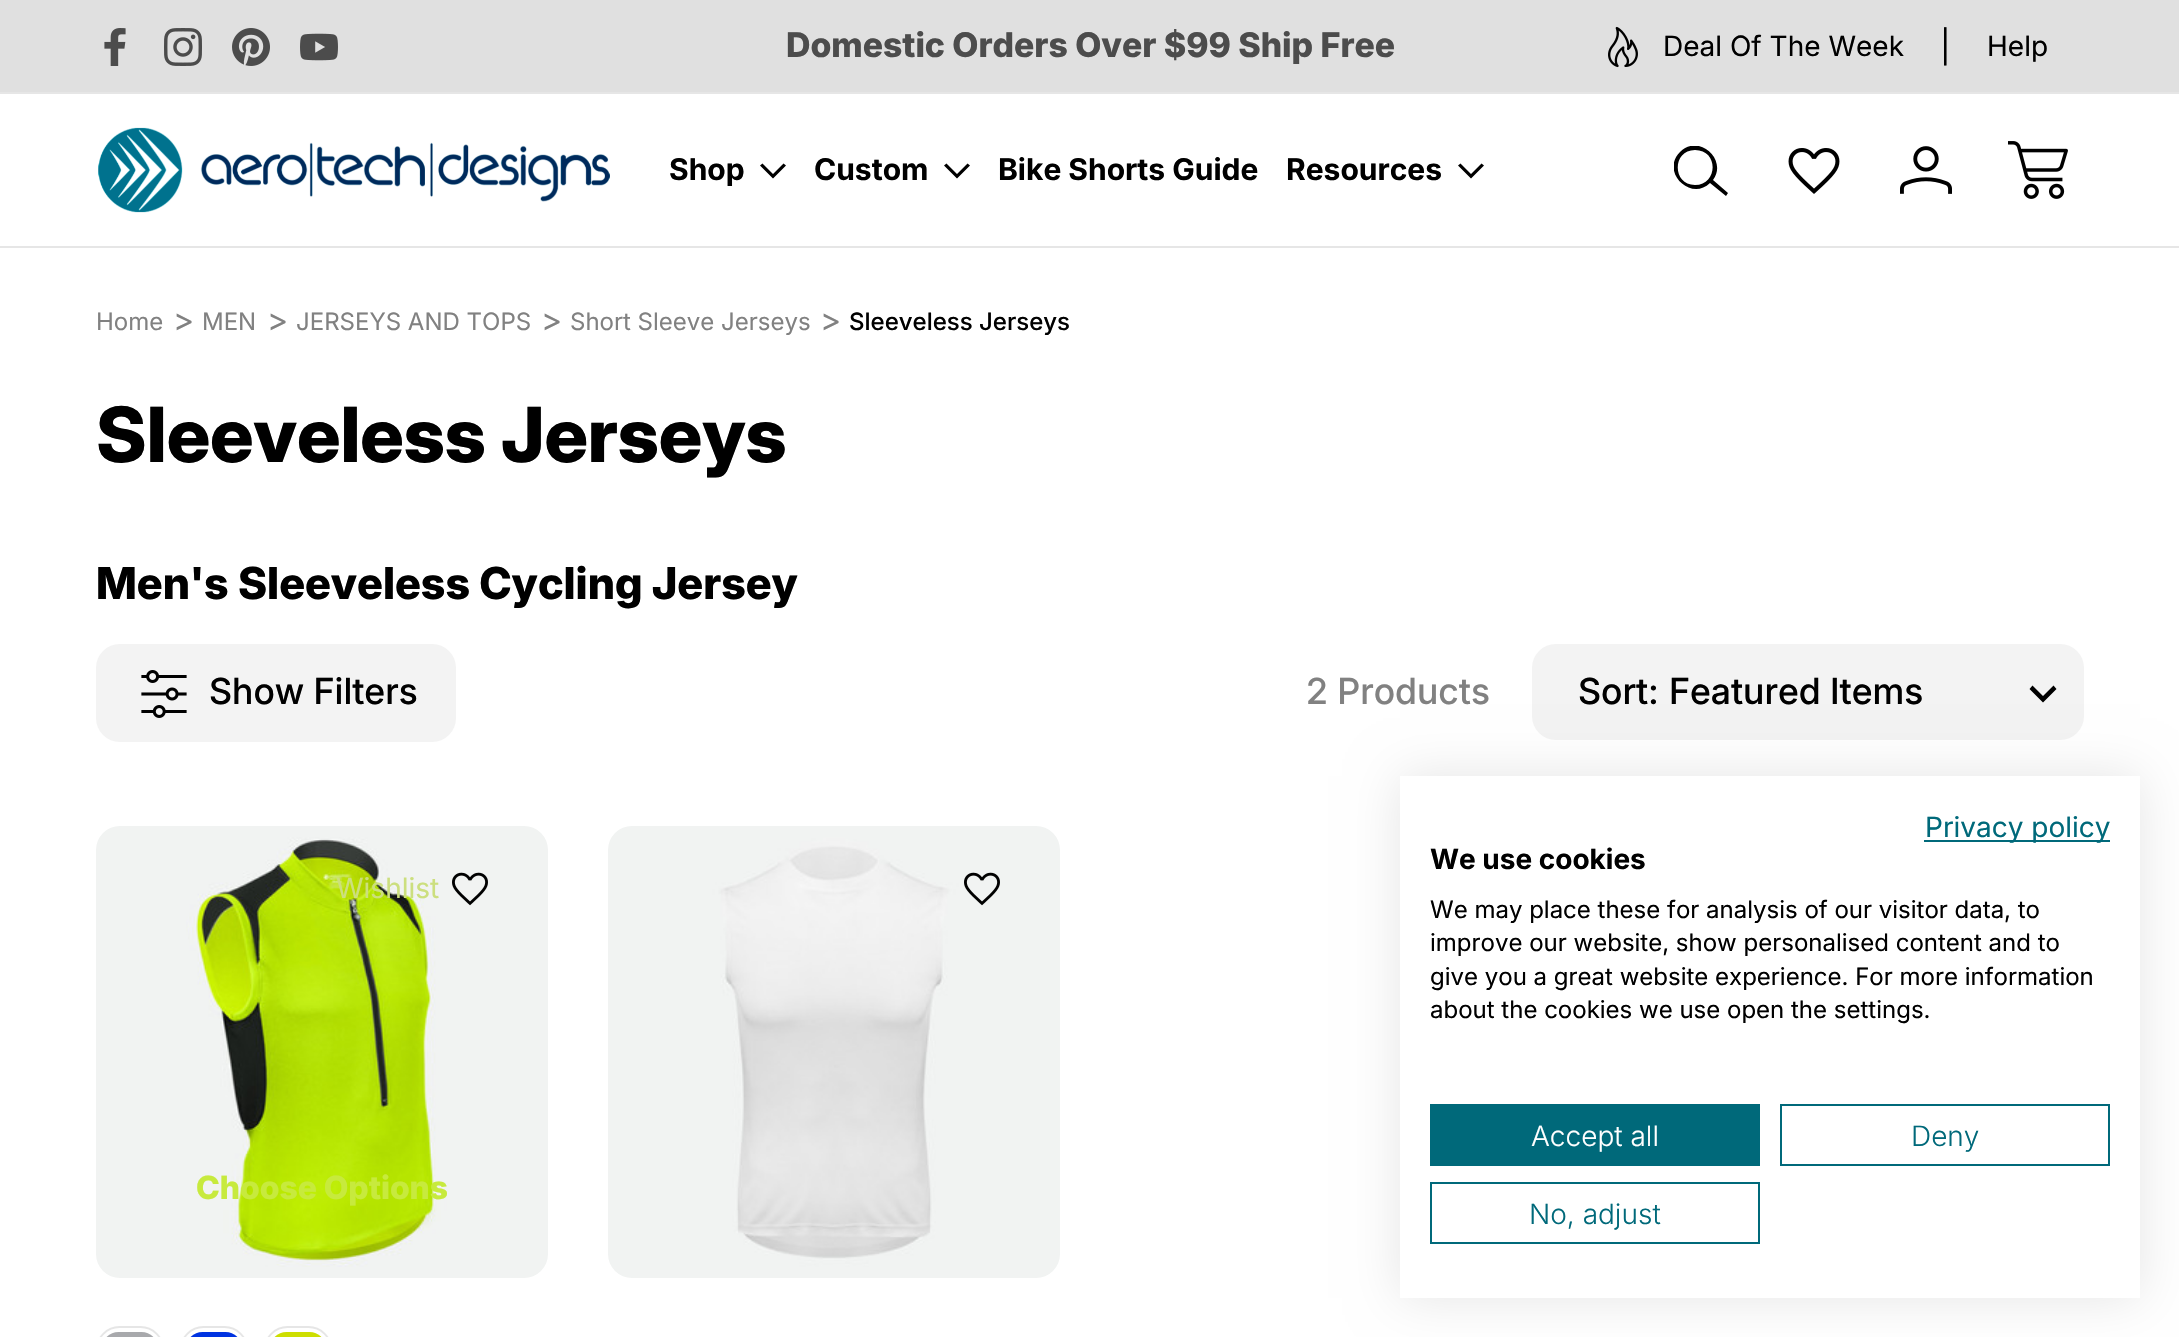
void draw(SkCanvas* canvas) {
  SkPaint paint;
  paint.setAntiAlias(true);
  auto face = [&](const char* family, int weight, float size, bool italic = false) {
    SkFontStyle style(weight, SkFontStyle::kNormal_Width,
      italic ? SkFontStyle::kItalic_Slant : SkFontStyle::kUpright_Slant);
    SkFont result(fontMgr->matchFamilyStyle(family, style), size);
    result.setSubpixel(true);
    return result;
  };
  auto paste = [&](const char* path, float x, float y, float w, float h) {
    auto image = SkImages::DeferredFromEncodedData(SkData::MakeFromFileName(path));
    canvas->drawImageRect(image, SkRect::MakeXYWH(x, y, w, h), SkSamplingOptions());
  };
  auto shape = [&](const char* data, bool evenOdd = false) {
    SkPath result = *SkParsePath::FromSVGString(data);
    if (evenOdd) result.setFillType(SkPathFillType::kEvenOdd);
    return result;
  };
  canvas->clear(0xffffffff);
  {
    const struct { float x, y, w, h; SkColor color; } items[] = {
      {0, 246, 2179, 2, 0xffe6e6e6},
      {0, 0, 2179, 92, 0xffe0e0e0},
      {0, 92, 2179, 2, 0xffe6e6e6},
    };
    for (auto [x, y, w, h, color] : items) {
      paint.setColor(color);
      canvas->drawRect(SkRect::MakeXYWH(x, y, w, h), paint);
    }
  }
  paste("img/1.png", 104, 28, 22, 38);
  paste("img/2.png", 164, 28, 38, 38);
  paste("img/3.png", 232, 28, 38, 38);
  paste("img/4.png", 300, 33, 38, 28);
  paste("img/5.png", 1608, 26, 30, 42);
  paste("img/6.png", 98, 127, 512, 86);
  paint.setColor(0xff000000);
  canvas->drawPath(shape("M773 178.5L760 165.5L762.5 163.5L773 174L783.5 163.5L786 165.5Z"), paint);
  canvas->drawPath(shape("M957 178.5L944 165.5L946.5 163.5L957 174L967.5 163.5L970 165.5Z"), paint);
  canvas->drawPath(shape("M1471 178.5L1458 165.5L1460.5 163.5L1471 174L1481.5 163.5L1484 165.5Z"), paint);
  canvas->save();
  canvas->clipRect(SkRect::MakeXYWH(1674, 146, 54, 50));
  canvas->drawPath(shape("M1728 193L1713 180C1728 160 1699 133 1680 152C1660 172 1691 202 1710 183L1726 196ZM1695 185C1672 185 1672 150 1695 150C1719 150 1718 185 1695 185Z"), paint);
  canvas->restore();
  paste("img/7.png", 1788, 148, 52, 46);
  paste("img/8.png", 1900, 146, 52, 48);
  paste("img/9.png", 2008, 141, 60, 58);
  paint.setColor(0xfff3f3f3);
  canvas->drawRoundRect(SkRect::MakeXYWH(96, 644, 360, 98), 24, 24, paint);
  paste("img/10.png", 141, 670, 46, 48);
  canvas->drawRoundRect(SkRect::MakeXYWH(1532, 644, 552, 96), 24, 24, paint);
  paint.setColor(0xff000000);
  canvas->drawPath(shape("M2032.5 685.5L2043 696L2053.5 685.5L2056.5 689L2043 702.5L2029.5 689Z"), paint);
  paste("img/11.png", 96, 826, 452, 452);
  paste("img/12.png", 452, 872, 36, 34);
  paint.setStroke(true);
  paint.setStrokeWidth(2);
  paint.setColor(0xffe6e6e6);
  canvas->drawRoundRect(SkRect::MakeXYWH(97, 1327, 66, 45), 33, 33, paint);
  paint.setStroke(false);
  paint.setColor(0xffa8a9ac);
  canvas->drawRoundRect(SkRect::MakeXYWH(102, 1332, 56, 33), 28, 28, paint);
  paint.setStroke(true);
  paint.setColor(0xffe6e6e6);
  canvas->drawRoundRect(SkRect::MakeXYWH(181, 1327, 66, 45), 33, 33, paint);
  paint.setStroke(false);
  paint.setColor(0xff0033e1);
  canvas->drawRoundRect(SkRect::MakeXYWH(186, 1332, 56, 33), 28, 28, paint);
  paint.setStroke(true);
  paint.setColor(0xffe6e6e6);
  canvas->drawRoundRect(SkRect::MakeXYWH(265, 1327, 66, 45), 33, 33, paint);
  paint.setStroke(false);
  paint.setColor(0xffcdde00);
  canvas->drawRoundRect(SkRect::MakeXYWH(270, 1332, 56, 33), 28, 28, paint);
  paste("img/13.png", 608, 826, 452, 452);
  paste("img/12.png", 964, 872, 36, 34);
  canvas->save();
  canvas->clipPath(shape("M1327 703H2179V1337H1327ZM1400 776H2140V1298H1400Z", true), true);
  paint.setColor(0x1a000000);
  paint.setMaskFilter(SkMaskFilter::MakeBlur(kNormal_SkBlurStyle, 24));
  canvas->drawRect(SkRect::MakeXYWH(1400, 776, 740, 522), paint);
  paint.setMaskFilter(nullptr);
  canvas->restore();
  paint.setColor(0xff00697a);
  canvas->drawRect(SkRect::MakeXYWH(1924, 840, 186, 2), paint);
  canvas->drawRect(SkRect::MakeXYWH(1430, 1104, 330, 62), paint);
  paint.setStroke(true);
  canvas->drawRect(SkRect::MakeXYWH(1781, 1105, 328, 60), paint);
  canvas->drawRect(SkRect::MakeXYWH(1431, 1183, 328, 60), paint);
  auto f0 = face("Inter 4", 800, 34);
  paint.setStroke(false);
  paint.setColor(0xff4c4c4c);
  canvas->drawString("Domestic Orders Over $99 Ship Free", 786, 57, f0, paint);
  auto f1 = face("Inter", 400, 28);
  paint.setColor(0xff000000);
  canvas->drawString("Deal Of The Week", 1663, 56, f1, paint);
  auto f2 = face("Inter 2", 400, 32);
  canvas->drawString("|", 1940, 58, f2, paint);
  canvas->drawString("Help", 1987, 56, f1, paint);
  auto f3 = face("Inter", 700, 30);
  {
    const struct { const char* s; float x, y; } items[] = {
      {"Shop", 669, 180},
      {"Custom", 814, 180},
      {"Bike Shorts Guide", 998, 180},
      {"Resources", 1286, 180},
    };
    for (auto [s, x, y] : items) {
      canvas->drawString(s, x, y, f3, paint);
    }
  }
  auto f4 = face("Inter", 400, 24);
  paint.setColor(0xff818181);
  canvas->drawString("Home", 96, 330, f4, paint);
  auto f5 = face("Inter", 400, 32);
  canvas->drawString(">", 173, 331, f5, paint);
  canvas->drawString("MEN", 202, 330, f4, paint);
  canvas->drawString(">", 267, 331, f5, paint);
  canvas->drawString("JERSEYS AND TOPS", 296, 330, f4, paint);
  canvas->drawString(">", 541, 331, f5, paint);
  canvas->drawString("Short Sleeve Jerseys", 570, 330, f4, paint);
  canvas->drawString(">", 820, 331, f5, paint);
  auto f6 = face("Inter", 500, 24);
  paint.setColor(0xff000000);
  canvas->drawString("Sleeveless Jerseys", 849, 330, f6, paint);
  auto f7 = face("Inter", 800, 76);
  canvas->drawString("Sleeveless Jerseys", 96, 462, f7, paint);
  auto f8 = face("Inter 2", 800, 44);
  canvas->drawString("Men's Sleeveless Cycling Jersey", 96, 599, f8, paint);
  auto f9 = face("Inter 2", 500, 36);
  canvas->drawString("Show Filters", 209, 704, f9, paint);
  paint.setColor(0xff818181);
  canvas->drawString("2 Products", 1306, 704, f9, paint);
  paint.setColor(0xff000000);
  canvas->drawString("Sort:", 1578, 704, f9, paint);
  canvas->drawString("Featured Items", 1669, 704, f9, paint);
  paint.setColor(0xffccdf7e);
  canvas->drawString("Wishlist", 336, 898, f1, paint);
  auto f10 = face("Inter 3", 800, 32);
  paint.setColor(0xffc7ea3d);
  canvas->drawString("Choose Options", 196, 1199, f10, paint);
  paint.setColor(0xff00697a);
  canvas->drawString("Privacy policy", 1925, 837, f1, paint);
  auto f11 = face("Inter", 700, 28);
  paint.setColor(0xff000000);
  canvas->drawString("We use cookies", 1430, 869, f11, paint);
  {
    const struct { const char* s; float x, y; } items[] = {
      {"We may place these for analysis of our visitor data, to", 1430, 918},
      {"improve our website, show personalised content and to", 1430, 951},
      {"give you a great website experience. For more information", 1430, 985},
      {"about the cookies we use open the settings.", 1430, 1018},
    };
    for (auto [s, x, y] : items) {
      canvas->drawString(s, x, y, f4, paint);
    }
  }
  auto f12 = face("Inter", 300, 28);
  paint.setColor(0xffffffff);
  canvas->drawString("Accept all", 1531, 1146, f12, paint);
  paint.setColor(0xff00697a);
  canvas->drawString("Deny", 1911, 1146, f12, paint);
  canvas->drawString("No, adjust", 1529, 1224, f12, paint);
}
